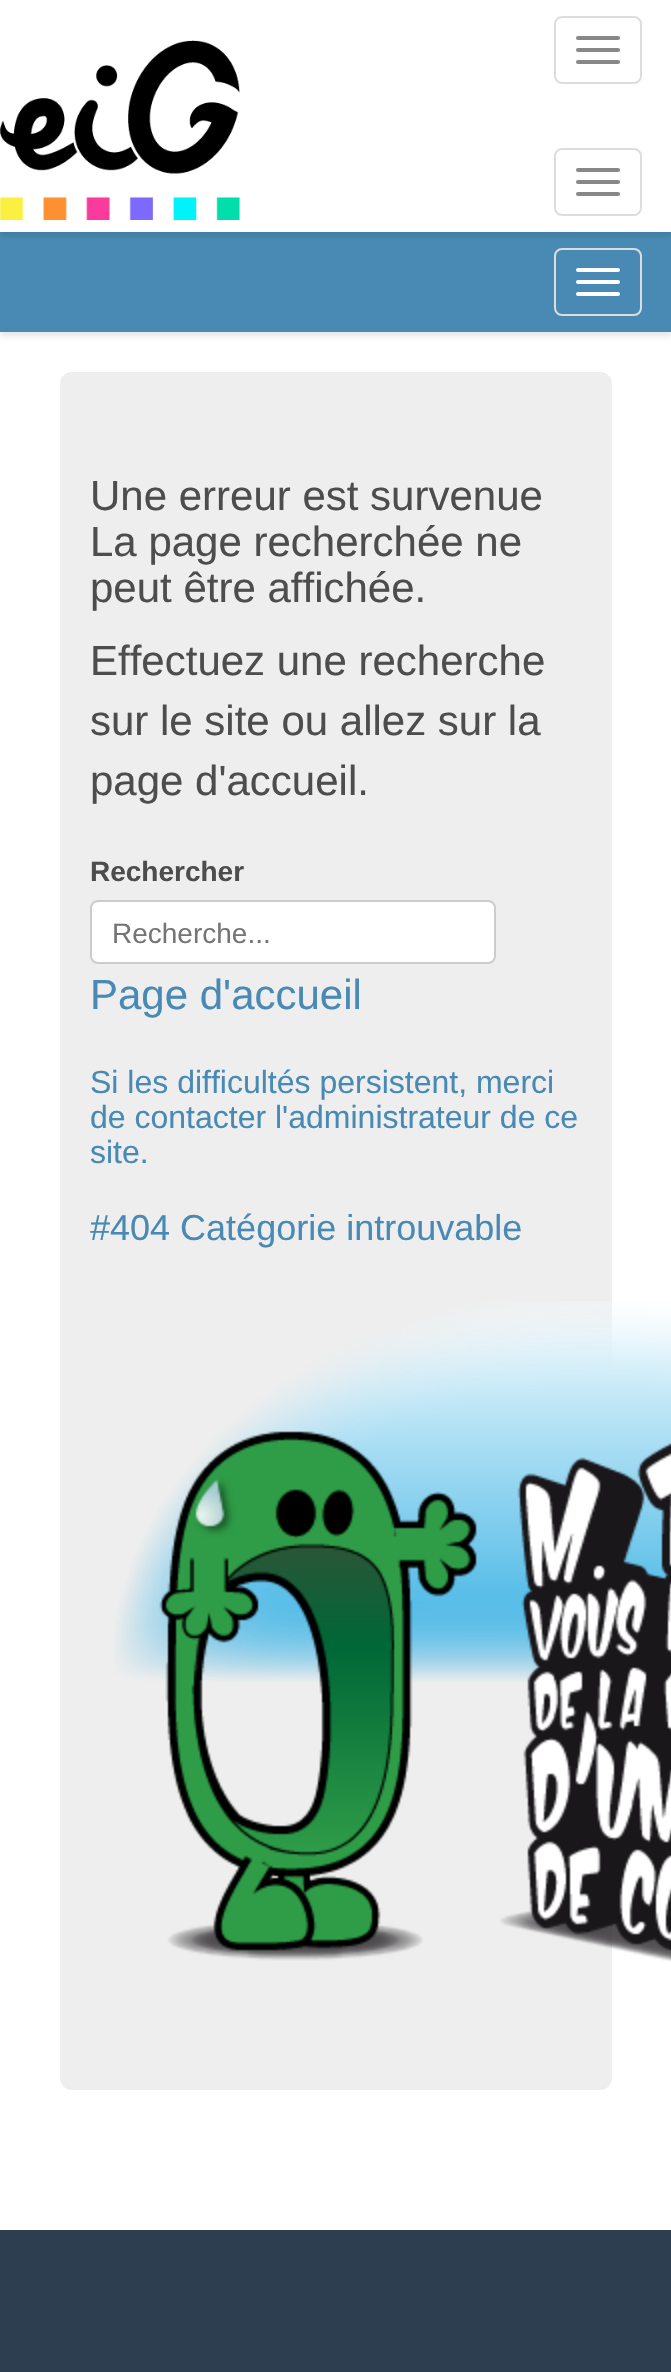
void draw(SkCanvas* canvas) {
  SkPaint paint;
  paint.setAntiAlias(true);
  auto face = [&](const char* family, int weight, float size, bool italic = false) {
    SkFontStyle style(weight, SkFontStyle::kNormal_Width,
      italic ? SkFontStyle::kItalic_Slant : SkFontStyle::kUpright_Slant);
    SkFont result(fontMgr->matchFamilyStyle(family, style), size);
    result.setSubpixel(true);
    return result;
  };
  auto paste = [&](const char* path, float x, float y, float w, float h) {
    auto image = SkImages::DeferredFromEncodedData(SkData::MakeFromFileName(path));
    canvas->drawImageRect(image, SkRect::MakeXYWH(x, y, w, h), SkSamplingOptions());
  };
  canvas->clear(0xffffffff);
  paste("img/1.png", 0, 40, 240, 180);
  paint.setStroke(true);
  paint.setStrokeWidth(2);
  paint.setColor(0xffdddddd);
  canvas->drawRoundRect(SkRect::MakeXYWH(555, 17, 86, 66), 7, 7, paint);
  paint.setStroke(false);
  paint.setColor(0xff888888);
  canvas->drawRoundRect(SkRect::MakeXYWH(576, 36, 44, 4), 2, 2, paint);
  canvas->drawRoundRect(SkRect::MakeXYWH(576, 48, 44, 4), 2, 2, paint);
  canvas->drawRoundRect(SkRect::MakeXYWH(576, 60, 44, 4), 2, 2, paint);
  paint.setColor(0x1a000000);
  paint.setMaskFilter(SkMaskFilter::MakeBlur(kNormal_SkBlurStyle, 3));
  canvas->drawRect(SkRect::MakeXYWH(0, 236, 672, 100), paint);
  paint.setMaskFilter(nullptr);
  paint.setColor(0xff498ab5);
  canvas->drawRect(SkRect::MakeXYWH(0, 232, 671, 100), paint);
  canvas->save();
  canvas->clipRect(SkRect::MakeXYWH(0, 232, 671, 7));
  paint.setColor(0x1a000000);
  paint.setMaskFilter(SkMaskFilter::MakeBlur(kNormal_SkBlurStyle, 3));
  canvas->drawRect(SkRect::MakeXYWH(0, 136, 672, 100), paint);
  paint.setMaskFilter(nullptr);
  canvas->restore();
  paint.setStroke(true);
  paint.setColor(0xffdddddd);
  canvas->drawRoundRect(SkRect::MakeXYWH(555, 149, 86, 66), 7, 7, paint);
  paint.setStroke(false);
  paint.setColor(0xff888888);
  canvas->drawRoundRect(SkRect::MakeXYWH(576, 168, 44, 4), 2, 2, paint);
  canvas->drawRoundRect(SkRect::MakeXYWH(576, 180, 44, 4), 2, 2, paint);
  canvas->drawRoundRect(SkRect::MakeXYWH(576, 192, 44, 4), 2, 2, paint);
  paint.setStroke(true);
  paint.setColor(0xffdddddd);
  canvas->drawRoundRect(SkRect::MakeXYWH(555, 249, 86, 66), 7, 7, paint);
  paint.setStroke(false);
  paint.setColor(0xffffffff);
  canvas->drawRoundRect(SkRect::MakeXYWH(576, 268, 44, 4), 2, 2, paint);
  canvas->drawRoundRect(SkRect::MakeXYWH(576, 280, 44, 4), 2, 2, paint);
  canvas->drawRoundRect(SkRect::MakeXYWH(576, 292, 44, 4), 2, 2, paint);
  paint.setColor(0xffeeeeee);
  canvas->drawRoundRect(SkRect::MakeXYWH(60, 372, 552, 1718), 12, 12, paint);
  paint.setColor(0xffffffff);
  canvas->drawRoundRect(SkRect::MakeXYWH(91, 901, 404, 62), 7, 7, paint);
  paint.setStroke(true);
  paint.setColor(0xffcccccc);
  canvas->drawRoundRect(SkRect::MakeXYWH(91, 901, 404, 62), 7, 7, paint);
  paste("img/2.png", 114, 1301, 557, 661);
  paint.setStroke(false);
  paint.setColor(0xff2c3e50);
  canvas->drawRect(SkRect::MakeXYWH(0, 2230, 671, 142), paint);
  auto f0 = face("Liberation Sans", 400, 42);
  paint.setColor(0xff4d4d4d);
  {
    const struct { const char* s; float x, y; } items[] = {
      {"Une erreur est survenue", 90, 510},
      {"La page recherchée ne", 90, 556},
      {"peut être affichée.", 90, 602},
      {"Effectuez une recherche", 90, 675},
      {"sur le site ou allez sur la", 90, 735},
      {"page d'accueil.", 90, 795},
    };
    for (auto [s, x, y] : items) {
      canvas->drawString(s, x, y, f0, paint);
    }
  }
  auto f1 = face("Liberation Sans", 700, 28);
  canvas->drawString("Rechercher", 90, 881, f1, paint);
  auto f2 = face("Liberation Sans", 400, 28);
  paint.setColor(0xff757575);
  canvas->drawString("Recherche...", 112, 943, f2, paint);
  paint.setColor(0xff498ab5);
  canvas->drawString("Page d'accueil", 90, 1009, f0, paint);
  auto f3 = face("Liberation Sans", 400, 32);
  {
    const struct { const char* s; float x, y; } items[] = {
      {"Si les difficultés persistent, merci", 90, 1093},
      {"de contacter l'administrateur de ce", 90, 1128},
      {"site.", 90, 1163},
    };
    for (auto [s, x, y] : items) {
      canvas->drawString(s, x, y, f3, paint);
    }
  }
  auto f4 = face("Liberation Sans", 400, 36);
  canvas->drawString("#404 Catégorie introuvable", 90, 1240, f4, paint);
}
